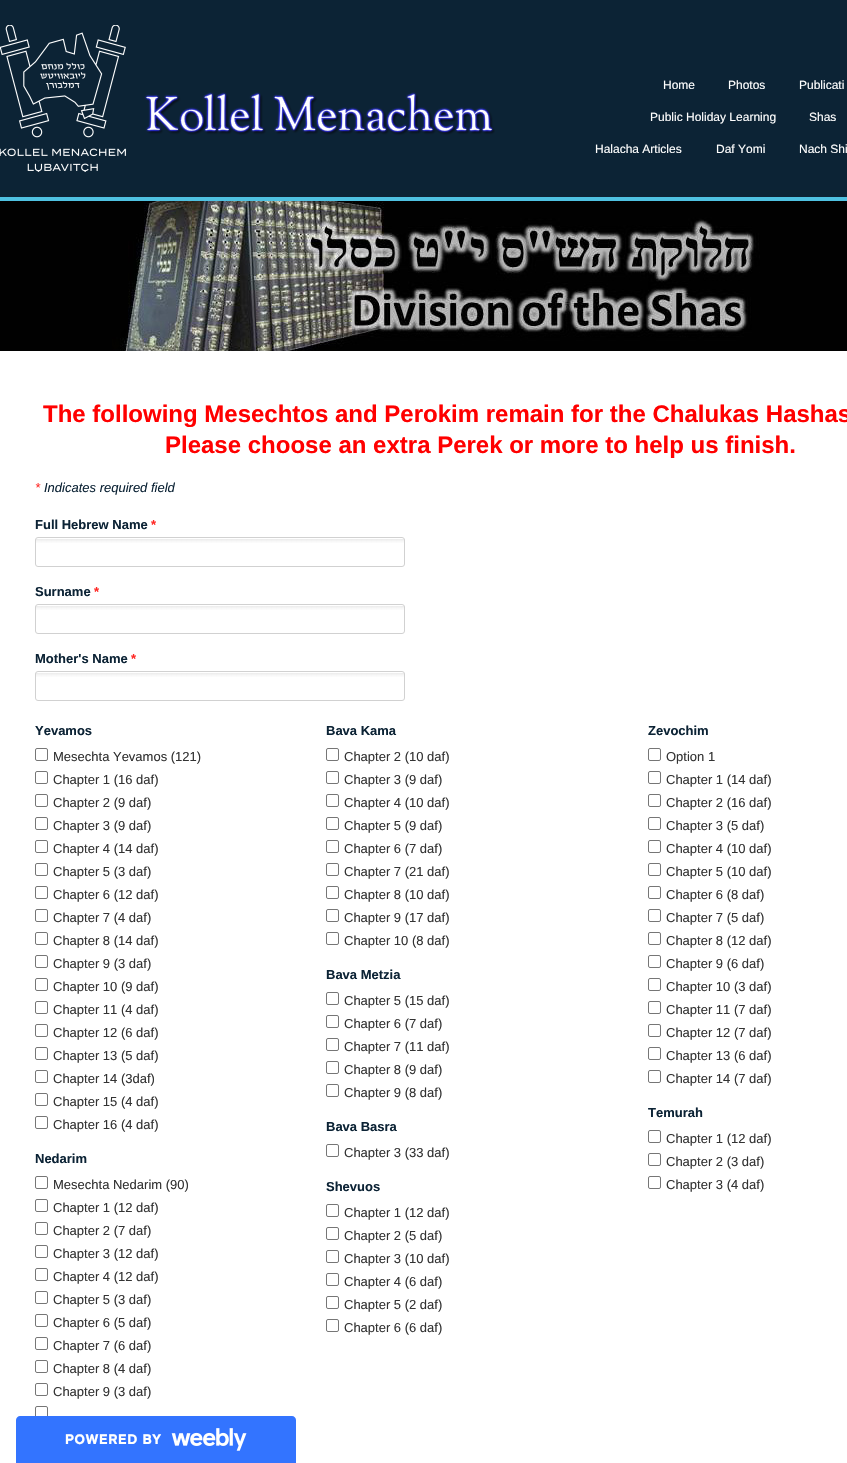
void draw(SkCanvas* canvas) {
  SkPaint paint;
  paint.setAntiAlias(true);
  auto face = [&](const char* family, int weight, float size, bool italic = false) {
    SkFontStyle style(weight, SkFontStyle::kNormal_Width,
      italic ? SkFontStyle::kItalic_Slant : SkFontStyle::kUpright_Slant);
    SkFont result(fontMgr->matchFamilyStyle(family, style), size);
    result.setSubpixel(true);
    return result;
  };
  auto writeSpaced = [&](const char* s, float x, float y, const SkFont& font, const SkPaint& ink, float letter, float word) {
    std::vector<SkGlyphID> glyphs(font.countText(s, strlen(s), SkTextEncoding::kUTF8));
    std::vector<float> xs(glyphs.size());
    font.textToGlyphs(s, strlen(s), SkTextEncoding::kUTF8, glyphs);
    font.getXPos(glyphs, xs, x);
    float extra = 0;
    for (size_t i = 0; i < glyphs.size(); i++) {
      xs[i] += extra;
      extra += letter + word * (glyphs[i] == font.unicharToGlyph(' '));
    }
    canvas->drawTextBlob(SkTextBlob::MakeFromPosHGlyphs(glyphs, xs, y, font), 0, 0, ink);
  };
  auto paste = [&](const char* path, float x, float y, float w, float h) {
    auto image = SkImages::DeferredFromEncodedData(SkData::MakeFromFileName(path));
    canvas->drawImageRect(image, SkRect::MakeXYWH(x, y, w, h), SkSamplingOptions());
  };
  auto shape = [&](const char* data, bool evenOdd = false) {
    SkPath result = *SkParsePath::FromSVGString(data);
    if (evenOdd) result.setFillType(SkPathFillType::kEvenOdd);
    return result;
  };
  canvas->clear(0xff0c2335);
  paste("img/1.png", 0, 25, 495, 147);
  paint.setColor(0xffffffff);
  canvas->drawRect(SkRect::MakeXYWH(0, 351, 847, 1112), paint);
  paint.setColor(0xff4fc1e1);
  canvas->drawRect(SkRect::MakeXYWH(0, 197, 847, 4), paint);
  paste("img/2.png", 0, 201, 847, 150);
  paste("img/3.png", 35, 539, 370, 4);
  paint.setStroke(true);
  paint.setStrokeWidth(1);
  paint.setColor(0xffd1d1d1);
  canvas->drawRoundRect(SkRect::MakeXYWH(35.5f, 537.5f, 369, 29), 2.5f, 2.5f, paint);
  paste("img/3.png", 35, 606, 370, 4);
  canvas->drawRoundRect(SkRect::MakeXYWH(35.5f, 604.5f, 369, 29), 2.5f, 2.5f, paint);
  paste("img/3.png", 35, 673, 370, 4);
  canvas->drawRoundRect(SkRect::MakeXYWH(35.5f, 671.5f, 369, 29), 2.5f, 2.5f, paint);
  paint.setColor(0xff767676);
  canvas->drawRoundRect(SkRect::MakeXYWH(35.5f, 748.5f, 12, 12), 1.5f, 1.5f, paint);
  canvas->drawRoundRect(SkRect::MakeXYWH(35.5f, 771.5f, 12, 12), 1.5f, 1.5f, paint);
  canvas->drawRoundRect(SkRect::MakeXYWH(35.5f, 794.5f, 12, 12), 1.5f, 1.5f, paint);
  canvas->drawRoundRect(SkRect::MakeXYWH(35.5f, 817.5f, 12, 12), 1.5f, 1.5f, paint);
  canvas->drawRoundRect(SkRect::MakeXYWH(35.5f, 840.5f, 12, 12), 1.5f, 1.5f, paint);
  canvas->drawRoundRect(SkRect::MakeXYWH(35.5f, 863.5f, 12, 12), 1.5f, 1.5f, paint);
  canvas->drawRoundRect(SkRect::MakeXYWH(35.5f, 886.5f, 12, 12), 1.5f, 1.5f, paint);
  canvas->drawRoundRect(SkRect::MakeXYWH(35.5f, 909.5f, 12, 12), 1.5f, 1.5f, paint);
  canvas->drawRoundRect(SkRect::MakeXYWH(35.5f, 932.5f, 12, 12), 1.5f, 1.5f, paint);
  canvas->drawRoundRect(SkRect::MakeXYWH(35.5f, 955.5f, 12, 12), 1.5f, 1.5f, paint);
  canvas->drawRoundRect(SkRect::MakeXYWH(35.5f, 978.5f, 12, 12), 1.5f, 1.5f, paint);
  canvas->drawRoundRect(SkRect::MakeXYWH(35.5f, 1001.5f, 12, 12), 1.5f, 1.5f, paint);
  canvas->drawRoundRect(SkRect::MakeXYWH(35.5f, 1024.5f, 12, 12), 1.5f, 1.5f, paint);
  canvas->drawRoundRect(SkRect::MakeXYWH(35.5f, 1047.5f, 12, 12), 1.5f, 1.5f, paint);
  canvas->drawRoundRect(SkRect::MakeXYWH(35.5f, 1070.5f, 12, 12), 1.5f, 1.5f, paint);
  canvas->drawRoundRect(SkRect::MakeXYWH(35.5f, 1093.5f, 12, 12), 1.5f, 1.5f, paint);
  canvas->drawRoundRect(SkRect::MakeXYWH(35.5f, 1116.5f, 12, 12), 1.5f, 1.5f, paint);
  canvas->drawRoundRect(SkRect::MakeXYWH(35.5f, 1176.5f, 12, 12), 1.5f, 1.5f, paint);
  canvas->drawRoundRect(SkRect::MakeXYWH(35.5f, 1199.5f, 12, 12), 1.5f, 1.5f, paint);
  canvas->drawRoundRect(SkRect::MakeXYWH(35.5f, 1222.5f, 12, 12), 1.5f, 1.5f, paint);
  canvas->drawRoundRect(SkRect::MakeXYWH(35.5f, 1245.5f, 12, 12), 1.5f, 1.5f, paint);
  canvas->drawRoundRect(SkRect::MakeXYWH(35.5f, 1268.5f, 12, 12), 1.5f, 1.5f, paint);
  canvas->drawRoundRect(SkRect::MakeXYWH(35.5f, 1291.5f, 12, 12), 1.5f, 1.5f, paint);
  canvas->drawRoundRect(SkRect::MakeXYWH(35.5f, 1314.5f, 12, 12), 1.5f, 1.5f, paint);
  canvas->drawRoundRect(SkRect::MakeXYWH(35.5f, 1337.5f, 12, 12), 1.5f, 1.5f, paint);
  canvas->drawRoundRect(SkRect::MakeXYWH(35.5f, 1360.5f, 12, 12), 1.5f, 1.5f, paint);
  canvas->drawRoundRect(SkRect::MakeXYWH(35.5f, 1383.5f, 12, 12), 1.5f, 1.5f, paint);
  canvas->drawRoundRect(SkRect::MakeXYWH(35.5f, 1406.5f, 12, 12), 1.5f, 1.5f, paint);
  canvas->drawRoundRect(SkRect::MakeXYWH(326.5f, 748.5f, 12, 12), 1.5f, 1.5f, paint);
  canvas->drawRoundRect(SkRect::MakeXYWH(326.5f, 771.5f, 12, 12), 1.5f, 1.5f, paint);
  canvas->drawRoundRect(SkRect::MakeXYWH(326.5f, 794.5f, 12, 12), 1.5f, 1.5f, paint);
  canvas->drawRoundRect(SkRect::MakeXYWH(326.5f, 817.5f, 12, 12), 1.5f, 1.5f, paint);
  canvas->drawRoundRect(SkRect::MakeXYWH(326.5f, 840.5f, 12, 12), 1.5f, 1.5f, paint);
  canvas->drawRoundRect(SkRect::MakeXYWH(326.5f, 863.5f, 12, 12), 1.5f, 1.5f, paint);
  canvas->drawRoundRect(SkRect::MakeXYWH(326.5f, 886.5f, 12, 12), 1.5f, 1.5f, paint);
  canvas->drawRoundRect(SkRect::MakeXYWH(326.5f, 909.5f, 12, 12), 1.5f, 1.5f, paint);
  canvas->drawRoundRect(SkRect::MakeXYWH(326.5f, 932.5f, 12, 12), 1.5f, 1.5f, paint);
  canvas->drawRoundRect(SkRect::MakeXYWH(326.5f, 992.5f, 12, 12), 1.5f, 1.5f, paint);
  canvas->drawRoundRect(SkRect::MakeXYWH(326.5f, 1015.5f, 12, 12), 1.5f, 1.5f, paint);
  canvas->drawRoundRect(SkRect::MakeXYWH(326.5f, 1038.5f, 12, 12), 1.5f, 1.5f, paint);
  canvas->drawRoundRect(SkRect::MakeXYWH(326.5f, 1061.5f, 12, 12), 1.5f, 1.5f, paint);
  canvas->drawRoundRect(SkRect::MakeXYWH(326.5f, 1084.5f, 12, 12), 1.5f, 1.5f, paint);
  canvas->drawRoundRect(SkRect::MakeXYWH(326.5f, 1144.5f, 12, 12), 1.5f, 1.5f, paint);
  canvas->drawRoundRect(SkRect::MakeXYWH(326.5f, 1204.5f, 12, 12), 1.5f, 1.5f, paint);
  canvas->drawRoundRect(SkRect::MakeXYWH(326.5f, 1227.5f, 12, 12), 1.5f, 1.5f, paint);
  canvas->drawRoundRect(SkRect::MakeXYWH(326.5f, 1250.5f, 12, 12), 1.5f, 1.5f, paint);
  canvas->drawRoundRect(SkRect::MakeXYWH(326.5f, 1273.5f, 12, 12), 1.5f, 1.5f, paint);
  canvas->drawRoundRect(SkRect::MakeXYWH(326.5f, 1296.5f, 12, 12), 1.5f, 1.5f, paint);
  canvas->drawRoundRect(SkRect::MakeXYWH(326.5f, 1319.5f, 12, 12), 1.5f, 1.5f, paint);
  canvas->drawRoundRect(SkRect::MakeXYWH(648.5f, 748.5f, 12, 12), 1.5f, 1.5f, paint);
  canvas->drawRoundRect(SkRect::MakeXYWH(648.5f, 771.5f, 12, 12), 1.5f, 1.5f, paint);
  canvas->drawRoundRect(SkRect::MakeXYWH(648.5f, 794.5f, 12, 12), 1.5f, 1.5f, paint);
  canvas->drawRoundRect(SkRect::MakeXYWH(648.5f, 817.5f, 12, 12), 1.5f, 1.5f, paint);
  canvas->drawRoundRect(SkRect::MakeXYWH(648.5f, 840.5f, 12, 12), 1.5f, 1.5f, paint);
  canvas->drawRoundRect(SkRect::MakeXYWH(648.5f, 863.5f, 12, 12), 1.5f, 1.5f, paint);
  canvas->drawRoundRect(SkRect::MakeXYWH(648.5f, 886.5f, 12, 12), 1.5f, 1.5f, paint);
  canvas->drawRoundRect(SkRect::MakeXYWH(648.5f, 909.5f, 12, 12), 1.5f, 1.5f, paint);
  canvas->drawRoundRect(SkRect::MakeXYWH(648.5f, 932.5f, 12, 12), 1.5f, 1.5f, paint);
  canvas->drawRoundRect(SkRect::MakeXYWH(648.5f, 955.5f, 12, 12), 1.5f, 1.5f, paint);
  canvas->drawRoundRect(SkRect::MakeXYWH(648.5f, 978.5f, 12, 12), 1.5f, 1.5f, paint);
  canvas->drawRoundRect(SkRect::MakeXYWH(648.5f, 1001.5f, 12, 12), 1.5f, 1.5f, paint);
  canvas->drawRoundRect(SkRect::MakeXYWH(648.5f, 1024.5f, 12, 12), 1.5f, 1.5f, paint);
  canvas->drawRoundRect(SkRect::MakeXYWH(648.5f, 1047.5f, 12, 12), 1.5f, 1.5f, paint);
  canvas->drawRoundRect(SkRect::MakeXYWH(648.5f, 1070.5f, 12, 12), 1.5f, 1.5f, paint);
  canvas->drawRoundRect(SkRect::MakeXYWH(648.5f, 1130.5f, 12, 12), 1.5f, 1.5f, paint);
  canvas->drawRoundRect(SkRect::MakeXYWH(648.5f, 1153.5f, 12, 12), 1.5f, 1.5f, paint);
  canvas->drawRoundRect(SkRect::MakeXYWH(648.5f, 1176.5f, 12, 12), 1.5f, 1.5f, paint);
  paint.setStroke(false);
  paint.setColor(0xff3374ff);
  canvas->drawPath(shape("M20 1416H292C294 1416 296 1418 296 1420V1463H16V1420C16 1418 18 1416 20 1416Z"), paint);
  paste("img/4.png", 171, 1428, 76, 23);
  auto f0 = face("Liberation Sans", 400, 12);
  paint.setColor(0xffffffff);
  {
    const struct { const char* s; float x, y; } items[] = {
      {"Home", 663, 89},
      {"Photos", 728, 89},
      {"Publicati", 799, 89},
      {"Public Holiday Learning", 650, 121},
      {"Shas", 809, 121},
      {"Halacha Articles", 595, 153},
      {"Daf Yomi", 716, 153},
      {"Nach Shi", 799, 153},
    };
    for (auto [s, x, y] : items) {
      canvas->drawString(s, x, y, f0, paint);
    }
  }
  auto f1 = face("Liberation Sans", 700, 24);
  paint.setColor(0xffff0000);
  canvas->drawString("The following Mesechtos and Perokim remain for the Chalukas Hashas", 43, 422, f1, paint);
  canvas->drawString("Please choose an extra Perek or more to help us finish.", 165, 453, f1, paint);
  auto f2 = face("Liberation Sans", 400, 13, true);
  paint.setColor(0xffff2825);
  canvas->drawString("*", 35, 492, f2, paint);
  paint.setColor(0xff0c2335);
  canvas->drawString("Indicates required field", 44, 492, f2, paint);
  auto f3 = face("Liberation Sans", 700, 13);
  canvas->drawString("Full Hebrew Name", 35, 529, f3, paint);
  paint.setColor(0xffff2825);
  canvas->drawString("*", 151, 529, f3, paint);
  paint.setColor(0xff0c2335);
  canvas->drawString("Surname", 35, 596, f3, paint);
  paint.setColor(0xffff2825);
  canvas->drawString("*", 94, 596, f3, paint);
  paint.setColor(0xff0c2335);
  canvas->drawString("Mother's Name", 35, 663, f3, paint);
  paint.setColor(0xffff2825);
  canvas->drawString("*", 131, 663, f3, paint);
  paint.setColor(0xff0c2335);
  canvas->drawString("Yevamos", 35, 735, f3, paint);
  auto f4 = face("Liberation Sans", 400, 13);
  paint.setColor(0xff333333);
  {
    const struct { const char* s; float x, y; } items[] = {
      {"Mesechta Yevamos (121)", 53, 761},
      {"Chapter 1 (16 daf)", 53, 784},
      {"Chapter 2 (9 daf)", 53, 807},
      {"Chapter 3 (9 daf)", 53, 830},
      {"Chapter 4 (14 daf)", 53, 853},
      {"Chapter 5 (3 daf)", 53, 876},
      {"Chapter 6 (12 daf)", 53, 899},
      {"Chapter 7 (4 daf)", 53, 922},
      {"Chapter 8 (14 daf)", 53, 945},
      {"Chapter 9 (3 daf)", 53, 968},
      {"Chapter 10 (9 daf)", 53, 991},
      {"Chapter 11 (4 daf)", 53, 1014},
      {"Chapter 12 (6 daf)", 53, 1037},
      {"Chapter 13 (5 daf)", 53, 1060},
      {"Chapter 14 (3daf)", 53, 1083},
      {"Chapter 15 (4 daf)", 53, 1106},
      {"Chapter 16 (4 daf)", 53, 1129},
    };
    for (auto [s, x, y] : items) {
      canvas->drawString(s, x, y, f4, paint);
    }
  }
  paint.setColor(0xff0c2335);
  canvas->drawString("Nedarim", 35, 1163, f3, paint);
  paint.setColor(0xff333333);
  {
    const struct { const char* s; float x, y; } items[] = {
      {"Mesechta Nedarim (90)", 53, 1189},
      {"Chapter 1 (12 daf)", 53, 1212},
      {"Chapter 2 (7 daf)", 53, 1235},
      {"Chapter 3 (12 daf)", 53, 1258},
      {"Chapter 4 (12 daf)", 53, 1281},
      {"Chapter 5 (3 daf)", 53, 1304},
      {"Chapter 6 (5 daf)", 53, 1327},
      {"Chapter 7 (6 daf)", 53, 1350},
      {"Chapter 8 (4 daf)", 53, 1373},
      {"Chapter 9 (3 daf)", 53, 1396},
    };
    for (auto [s, x, y] : items) {
      canvas->drawString(s, x, y, f4, paint);
    }
  }
  paint.setColor(0xff0c2335);
  canvas->drawString("Bava Kama", 326, 735, f3, paint);
  paint.setColor(0xff333333);
  {
    const struct { const char* s; float x, y; } items[] = {
      {"Chapter 2 (10 daf)", 344, 761},
      {"Chapter 3 (9 daf)", 344, 784},
      {"Chapter 4 (10 daf)", 344, 807},
      {"Chapter 5 (9 daf)", 344, 830},
      {"Chapter 6 (7 daf)", 344, 853},
      {"Chapter 7 (21 daf)", 344, 876},
      {"Chapter 8 (10 daf)", 344, 899},
      {"Chapter 9 (17 daf)", 344, 922},
      {"Chapter 10 (8 daf)", 344, 945},
    };
    for (auto [s, x, y] : items) {
      canvas->drawString(s, x, y, f4, paint);
    }
  }
  paint.setColor(0xff0c2335);
  canvas->drawString("Bava Metzia", 326, 979, f3, paint);
  paint.setColor(0xff333333);
  {
    const struct { const char* s; float x, y; } items[] = {
      {"Chapter 5 (15 daf)", 344, 1005},
      {"Chapter 6 (7 daf)", 344, 1028},
      {"Chapter 7 (11 daf)", 344, 1051},
      {"Chapter 8 (9 daf)", 344, 1074},
      {"Chapter 9 (8 daf)", 344, 1097},
    };
    for (auto [s, x, y] : items) {
      canvas->drawString(s, x, y, f4, paint);
    }
  }
  paint.setColor(0xff0c2335);
  canvas->drawString("Bava Basra", 326, 1131, f3, paint);
  paint.setColor(0xff333333);
  canvas->drawString("Chapter 3 (33 daf)", 344, 1157, f4, paint);
  paint.setColor(0xff0c2335);
  canvas->drawString("Shevuos", 326, 1191, f3, paint);
  paint.setColor(0xff333333);
  {
    const struct { const char* s; float x, y; } items[] = {
      {"Chapter 1 (12 daf)", 344, 1217},
      {"Chapter 2 (5 daf)", 344, 1240},
      {"Chapter 3 (10 daf)", 344, 1263},
      {"Chapter 4 (6 daf)", 344, 1286},
      {"Chapter 5 (2 daf)", 344, 1309},
      {"Chapter 6 (6 daf)", 344, 1332},
    };
    for (auto [s, x, y] : items) {
      canvas->drawString(s, x, y, f4, paint);
    }
  }
  paint.setColor(0xff0c2335);
  canvas->drawString("Zevochim", 648, 735, f3, paint);
  paint.setColor(0xff333333);
  {
    const struct { const char* s; float x, y; } items[] = {
      {"Option 1", 666, 761},
      {"Chapter 1 (14 daf)", 666, 784},
      {"Chapter 2 (16 daf)", 666, 807},
      {"Chapter 3 (5 daf)", 666, 830},
      {"Chapter 4 (10 daf)", 666, 853},
      {"Chapter 5 (10 daf)", 666, 876},
      {"Chapter 6 (8 daf)", 666, 899},
      {"Chapter 7 (5 daf)", 666, 922},
      {"Chapter 8 (12 daf)", 666, 945},
      {"Chapter 9 (6 daf)", 666, 968},
      {"Chapter 10 (3 daf)", 666, 991},
      {"Chapter 11 (7 daf)", 666, 1014},
      {"Chapter 12 (7 daf)", 666, 1037},
      {"Chapter 13 (6 daf)", 666, 1060},
      {"Chapter 14 (7 daf)", 666, 1083},
    };
    for (auto [s, x, y] : items) {
      canvas->drawString(s, x, y, f4, paint);
    }
  }
  paint.setColor(0xff0c2335);
  canvas->drawString("Temurah", 648, 1117, f3, paint);
  paint.setColor(0xff333333);
  {
    const struct { const char* s; float x, y; } items[] = {
      {"Chapter 1 (12 daf)", 666, 1143},
      {"Chapter 2 (3 daf)", 666, 1166},
      {"Chapter 3 (4 daf)", 666, 1189},
    };
    for (auto [s, x, y] : items) {
      canvas->drawString(s, x, y, f4, paint);
    }
  }
  auto f5 = face("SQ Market", 700, 13);
  paint.setColor(0xffffffff);
  writeSpaced("POWERED BY", 65, 1444, f5, paint, 1, 0);
}
